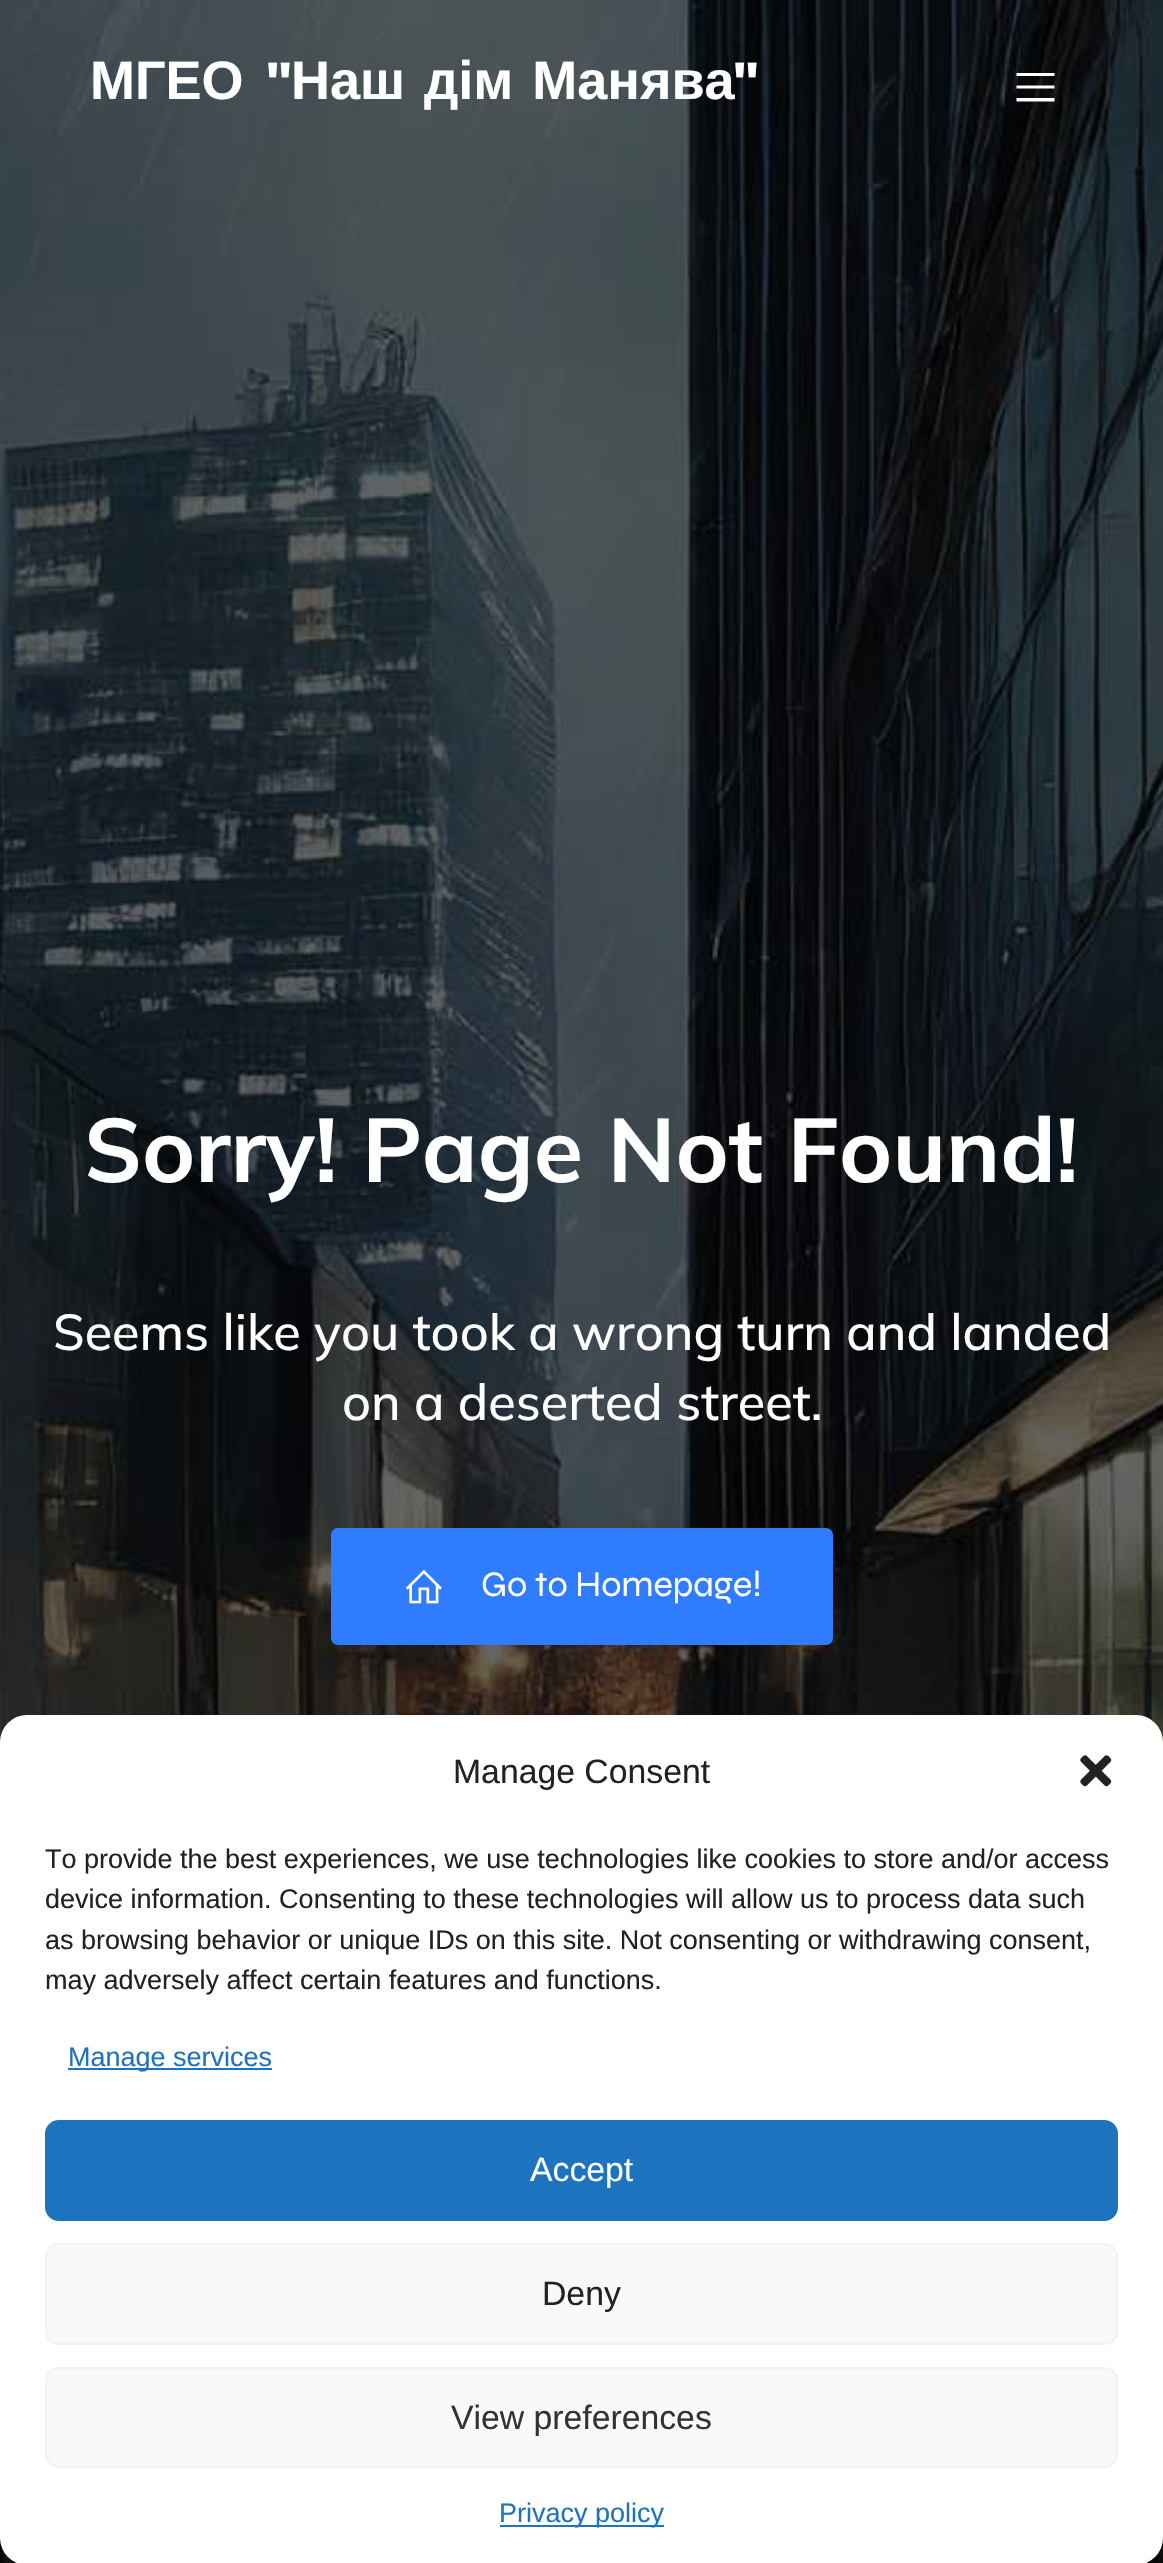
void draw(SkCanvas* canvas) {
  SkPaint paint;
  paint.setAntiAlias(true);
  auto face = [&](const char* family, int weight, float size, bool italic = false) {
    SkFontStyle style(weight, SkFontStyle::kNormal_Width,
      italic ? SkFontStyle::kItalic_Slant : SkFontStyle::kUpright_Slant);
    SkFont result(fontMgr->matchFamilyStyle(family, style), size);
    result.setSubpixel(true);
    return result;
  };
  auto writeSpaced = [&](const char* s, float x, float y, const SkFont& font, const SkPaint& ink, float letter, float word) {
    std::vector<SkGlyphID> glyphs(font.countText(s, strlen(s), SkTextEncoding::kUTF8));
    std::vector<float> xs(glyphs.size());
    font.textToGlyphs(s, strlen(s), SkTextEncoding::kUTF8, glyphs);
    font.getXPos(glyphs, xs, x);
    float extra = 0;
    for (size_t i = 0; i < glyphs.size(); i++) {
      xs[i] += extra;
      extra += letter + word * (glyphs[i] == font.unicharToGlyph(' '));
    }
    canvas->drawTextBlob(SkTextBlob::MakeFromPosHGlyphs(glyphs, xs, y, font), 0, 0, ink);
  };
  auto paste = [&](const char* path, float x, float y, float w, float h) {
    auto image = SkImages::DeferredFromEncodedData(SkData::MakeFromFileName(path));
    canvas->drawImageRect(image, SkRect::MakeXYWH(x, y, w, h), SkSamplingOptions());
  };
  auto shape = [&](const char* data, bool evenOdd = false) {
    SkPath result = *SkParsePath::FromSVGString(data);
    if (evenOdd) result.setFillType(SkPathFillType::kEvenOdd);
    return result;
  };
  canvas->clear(0xffffffff);
  paste("img/1.png", 0, 0, 1163, 2563);
  paint.setColor(0xffffffff);
  canvas->drawPath(shape("M1016.5 73H1054.5V76H1016.5ZM1016.5 85.5H1054.5V88.5H1016.5ZM1016.5 98H1054.5V101.5H1016.5Z"), paint);
  paint.setColor(0xff2f7cff);
  canvas->drawRoundRect(SkRect::MakeXYWH(331, 1528, 502, 117), 7, 7, paint);
  paste("img/2.png", 405, 1569, 37, 35);
  paint.setColor(0x3b000000);
  paint.setMaskFilter(SkMaskFilter::MakeBlur(kNormal_SkBlurStyle, 7));
  canvas->drawRoundRect(SkRect::MakeXYWH(0, 1728, 1163, 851), 27, 27, paint);
  paint.setMaskFilter(nullptr);
  paint.setColor(0x30000000);
  paint.setMaskFilter(SkMaskFilter::MakeBlur(kNormal_SkBlurStyle, 22.5f));
  canvas->drawRoundRect(SkRect::MakeXYWH(0, 1737, 1163, 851), 27, 27, paint);
  paint.setMaskFilter(nullptr);
  paint.setColor(0xffffffff);
  canvas->drawRoundRect(SkRect::MakeXYWH(0, 1715, 1163, 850), 27, 27, paint);
  paste("img/3.png", 1080, 1755, 32, 32);
  paint.setColor(0xff1e73be);
  canvas->drawRect(SkRect::MakeXYWH(68, 2068, 204, 2), paint);
  canvas->drawRoundRect(SkRect::MakeXYWH(46, 2121, 1071, 99), 13, 13, paint);
  paint.setStroke(true);
  paint.setStrokeWidth(2);
  canvas->drawRoundRect(SkRect::MakeXYWH(46, 2121, 1071, 99), 13, 13, paint);
  paint.setStroke(false);
  paint.setColor(0xfff9f9f9);
  canvas->drawRoundRect(SkRect::MakeXYWH(46, 2244, 1071, 100), 13, 13, paint);
  paint.setStroke(true);
  paint.setColor(0xfff2f2f2);
  canvas->drawRoundRect(SkRect::MakeXYWH(46, 2244, 1071, 100), 13, 13, paint);
  paint.setStroke(false);
  paint.setColor(0xfff9f9f9);
  canvas->drawRoundRect(SkRect::MakeXYWH(46, 2368, 1071, 99), 13, 13, paint);
  paint.setStroke(true);
  paint.setColor(0xfff2f2f2);
  canvas->drawRoundRect(SkRect::MakeXYWH(46, 2368, 1071, 99), 13, 13, paint);
  paint.setStroke(false);
  paint.setColor(0xff1e73be);
  canvas->drawRect(SkRect::MakeXYWH(500, 2525, 164, 2), paint);
  auto f0 = face("Liberation Sans", 700, 54);
  paint.setColor(0xffffffff);
  canvas->drawString("МГЕО", 90, 99, f0, paint);
  auto f1 = face("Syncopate", 700, 54);
  canvas->drawString("\"", 267, 99, f1, paint);
  writeSpaced("Наш дім Манява", 291, 99, f0, paint, 0, 4);
  canvas->drawString("\"", 734, 99, f1, paint);
  auto f2 = face("Mulish", 700, 90);
  canvas->drawString("Sorry! Page Not Found!", 84, 1182, f2, paint);
  auto f3 = face("Mulish", 500, 50.4f);
  canvas->drawString("Seems like you took a wrong turn and landed", 53, 1350, f3, paint);
  canvas->drawString("on a deserted street.", 342, 1420, f3, paint);
  auto f4 = face("Syne", 400, 36);
  canvas->drawString("Go to Homepage!", 481, 1596, f4, paint);
  auto f5 = face("Liberation Sans", 400, 33.75f);
  paint.setColor(0xff222222);
  canvas->drawString("Manage Consent", 453, 1783, f5, paint);
  auto f6 = face("Liberation Sans", 400, 27);
  {
    const struct { const char* s; float x, y; } items[] = {
      {"To provide the best experiences, we use technologies like cookies to store and/or access", 45, 1868},
      {"device information. Consenting to these technologies will allow us to process data such", 45, 1908},
      {"as browsing behavior or unique IDs on this site. Not consenting or withdrawing consent,", 45, 1949},
      {"may adversely affect certain features and functions.", 45, 1989},
    };
    for (auto [s, x, y] : items) {
      canvas->drawString(s, x, y, f6, paint);
    }
  }
  paint.setColor(0xff1e73be);
  canvas->drawString("Manage services", 68, 2066, f6, paint);
  paint.setColor(0xffffffff);
  canvas->drawString("Accept", 530, 2181, f5, paint);
  paint.setColor(0xff222222);
  canvas->drawString("Deny", 542, 2305, f5, paint);
  paint.setColor(0xff333333);
  canvas->drawString("View preferences", 451, 2429, f5, paint);
  paint.setColor(0xff1e73be);
  canvas->drawString("Privacy policy", 499, 2522, f6, paint);
}
